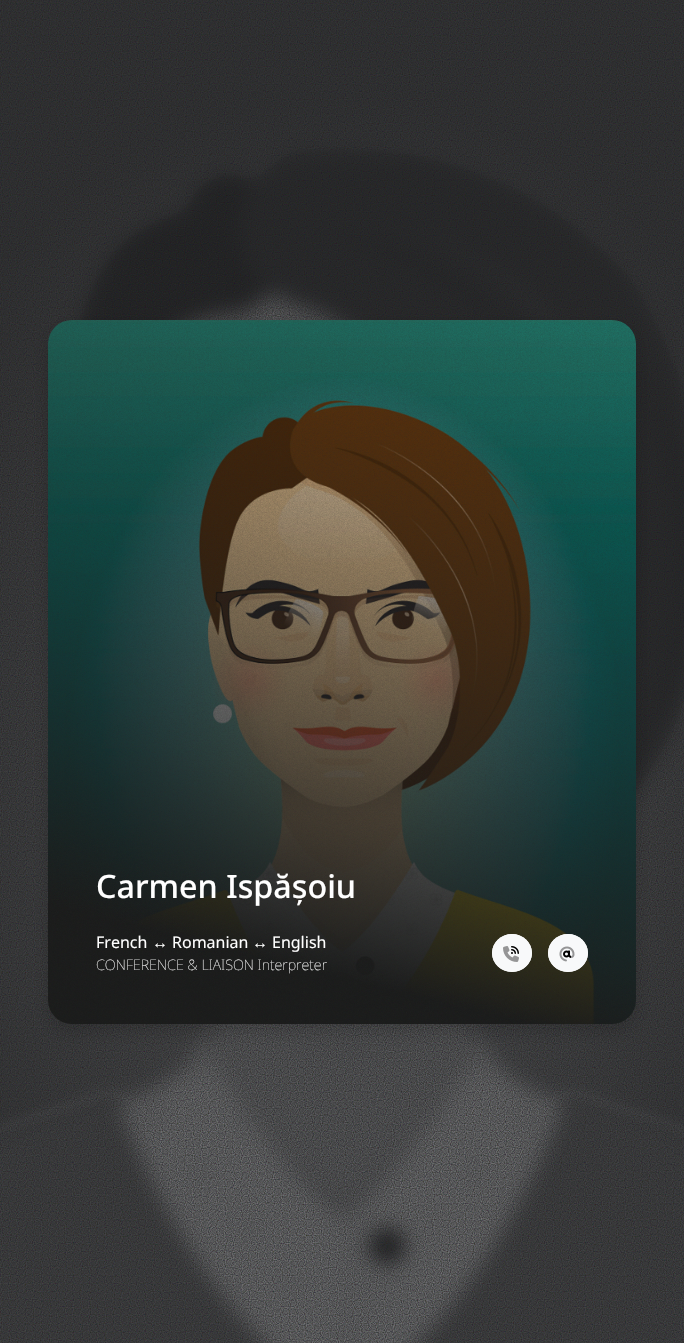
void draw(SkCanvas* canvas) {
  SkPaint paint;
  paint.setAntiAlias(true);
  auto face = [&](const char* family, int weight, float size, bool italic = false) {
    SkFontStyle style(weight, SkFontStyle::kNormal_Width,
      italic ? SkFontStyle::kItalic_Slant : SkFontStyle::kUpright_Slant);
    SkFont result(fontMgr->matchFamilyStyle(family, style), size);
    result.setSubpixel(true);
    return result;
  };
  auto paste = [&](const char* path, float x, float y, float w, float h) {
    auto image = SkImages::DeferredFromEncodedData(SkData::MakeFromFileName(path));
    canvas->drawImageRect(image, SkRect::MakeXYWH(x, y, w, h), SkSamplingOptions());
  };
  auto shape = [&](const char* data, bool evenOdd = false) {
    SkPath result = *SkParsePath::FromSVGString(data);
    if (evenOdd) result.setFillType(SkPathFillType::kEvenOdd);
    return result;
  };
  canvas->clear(0xffffffff);
  paste("img/1.png", 0, 0, 684, 1343);
  paint.setColor(0x26000000);
  paint.setMaskFilter(SkMaskFilter::MakeBlur(kNormal_SkBlurStyle, 8));
  canvas->drawRoundRect(SkRect::MakeXYWH(48, 328, 588, 704), 24, 24, paint);
  paint.setMaskFilter(nullptr);
  paste("img/2.png", 48, 320, 588, 704);
  paint.setColor(0xfff8f9fa);
  canvas->drawOval(SkRect::MakeXYWH(492, 934, 40, 38), paint);
  paint.setStroke(true);
  paint.setStrokeWidth(1);
  canvas->drawPath(shape("M512 934.5C523 934.5 531.5 943 531.5 953C531.5 963 523 971.5 512 971.5C501 971.5 492.5 963 492.5 953C492.5 943 501 934.5 512 934.5Z"), paint);
  paste("img/3.png", 503, 946, 16, 16);
  paint.setStroke(false);
  canvas->drawOval(SkRect::MakeXYWH(548, 934, 40, 38), paint);
  paint.setStroke(true);
  canvas->drawPath(shape("M568 934.5C579 934.5 587.5 943 587.5 953C587.5 963 579 971.5 568 971.5C557 971.5 548.5 963 548.5 953C548.5 943 557 934.5 568 934.5Z"), paint);
  paste("img/4.png", 559, 946, 16, 16);
  auto f0 = face("Noto Sans", 500, 32.25f);
  paint.setStroke(false);
  paint.setColor(0xffffffff);
  canvas->drawString("Carmen Ispășoiu", 96, 898, f0, paint);
  auto f1 = face("Noto Sans", 400, 16);
  canvas->drawString("French", 96, 948, f1, paint);
  auto f2 = face("Liberation Sans", 400, 16);
  canvas->drawString("↔", 152, 948, f2, paint);
  canvas->drawString("Romanian", 172, 948, f1, paint);
  canvas->drawString("↔", 252, 948, f2, paint);
  canvas->drawString("English", 272, 948, f1, paint);
  auto f3 = face("Noto Sans", 100, 14.4f);
  canvas->drawString("CONFERENCE & LIAISON Interpreter", 96, 970, f3, paint);
}
